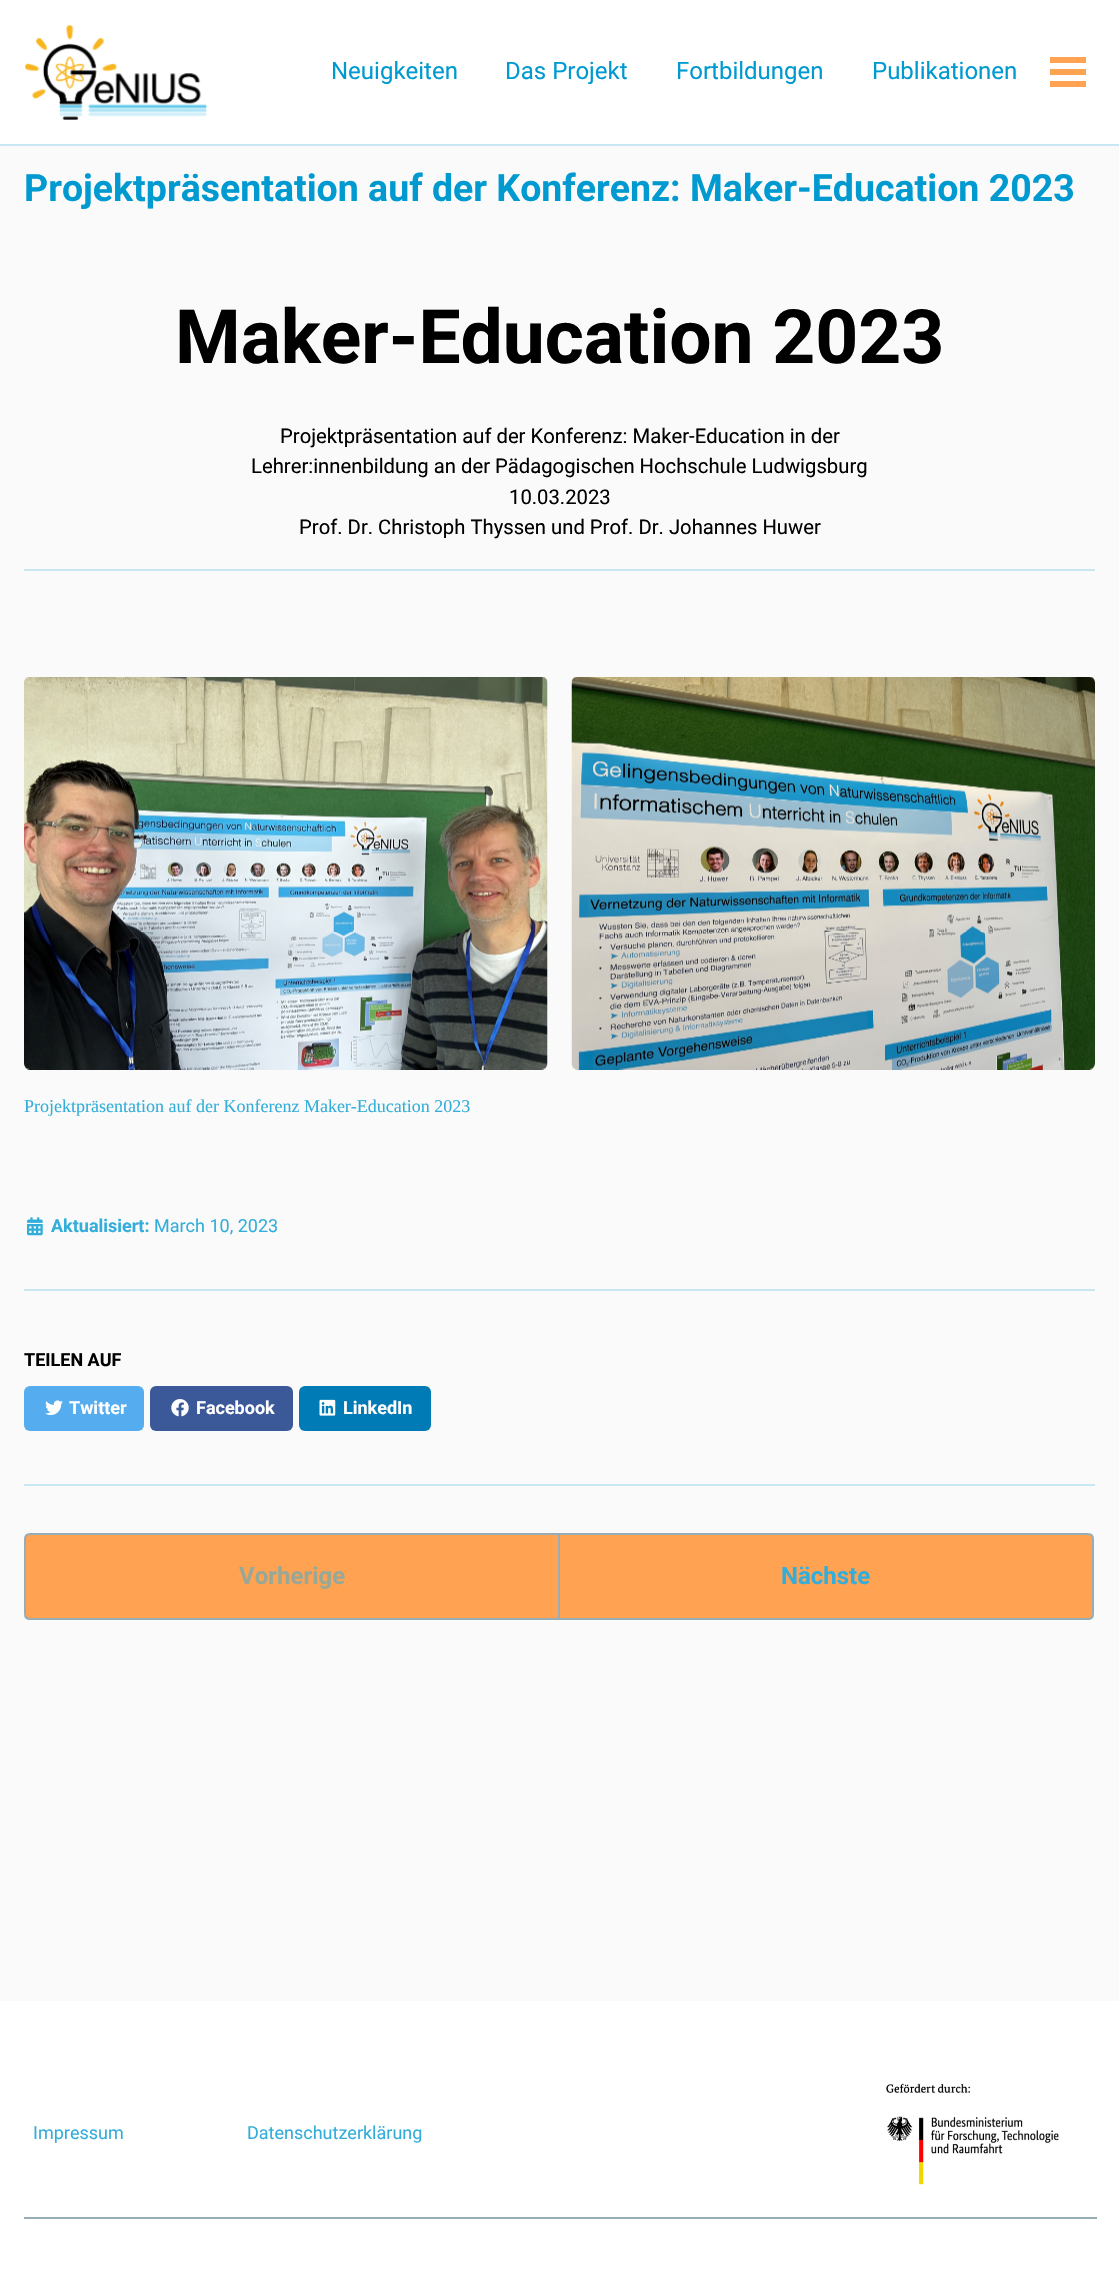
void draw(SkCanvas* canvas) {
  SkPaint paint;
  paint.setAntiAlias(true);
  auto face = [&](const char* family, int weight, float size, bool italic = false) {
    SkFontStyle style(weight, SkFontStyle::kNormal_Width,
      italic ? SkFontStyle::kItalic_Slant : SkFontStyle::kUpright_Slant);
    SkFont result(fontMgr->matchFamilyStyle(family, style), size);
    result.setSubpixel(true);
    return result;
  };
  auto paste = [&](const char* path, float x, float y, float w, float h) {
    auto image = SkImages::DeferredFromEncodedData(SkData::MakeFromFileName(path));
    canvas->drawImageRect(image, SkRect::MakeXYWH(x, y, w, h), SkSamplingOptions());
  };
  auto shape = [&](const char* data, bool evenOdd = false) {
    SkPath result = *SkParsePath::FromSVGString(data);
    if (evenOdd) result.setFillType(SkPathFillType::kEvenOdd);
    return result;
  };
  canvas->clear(0xfffafafa);
  paint.setColor(0xffc8e7f2);
  canvas->drawRect(SkRect::MakeXYWH(0, 144, 1119, 2), paint);
  paint.setColor(0xffffffff);
  canvas->drawRect(SkRect::MakeXYWH(0, 0, 1119, 144), paint);
  paste("img/1.png", 25, 25, 183, 95);
  {
    const struct { float x, y, w, h; SkColor color; } items[] = {
      {1050, 69, 36, 6, 0xffffa252},
      {1050, 57, 36, 6, 0xffffa252},
      {1050, 81, 36, 6, 0xffffa252},
      {24, 569, 1071, 2, 0xffc8e7f2},
    };
    for (auto [x, y, w, h, color] : items) {
      paint.setColor(color);
      canvas->drawRect(SkRect::MakeXYWH(x, y, w, h), paint);
    }
  }
  paste("img/2.png", 24, 677, 524, 393);
  paste("img/3.png", 571, 677, 524, 393);
  paste("img/4.png", 27, 1217, 16, 19);
  canvas->drawRect(SkRect::MakeXYWH(24, 1289, 1071, 2), paint);
  paint.setColor(0xff55acee);
  canvas->drawRoundRect(SkRect::MakeXYWH(24, 1386, 120, 45), 6, 6, paint);
  paste("img/5.png", 45, 1400, 18, 16);
  paint.setColor(0xff3b5998);
  canvas->drawRoundRect(SkRect::MakeXYWH(150, 1386, 143, 45), 6, 6, paint);
  paste("img/6.png", 171, 1399, 18, 18);
  paint.setColor(0xff007bb6);
  canvas->drawRoundRect(SkRect::MakeXYWH(299, 1386, 132, 45), 6, 6, paint);
  paste("img/7.png", 319, 1399, 17, 17);
  paint.setColor(0xffc8e7f2);
  canvas->drawRect(SkRect::MakeXYWH(24, 1484, 1071, 2), paint);
  paint.setColor(0xffffa252);
  canvas->drawPath(shape("M30 1534H559V1619H30C27 1619 25 1617 25 1614V1539C25 1536 27 1534 30 1534Z"), paint);
  paint.setStroke(true);
  paint.setStrokeWidth(2);
  paint.setColor(0xff96adb6);
  canvas->drawPath(shape("M30 1534H559V1619H30C27 1619 25 1617 25 1614V1539C25 1536 27 1534 30 1534Z"), paint);
  paint.setStroke(false);
  paint.setColor(0xffffa252);
  canvas->drawPath(shape("M559 1534H1088C1091 1534 1093 1536 1093 1539V1614C1093 1617 1091 1619 1088 1619H559Z"), paint);
  paint.setStroke(true);
  paint.setColor(0xff96adb6);
  canvas->drawPath(shape("M559 1534H1088C1091 1534 1093 1536 1093 1539V1614C1093 1617 1091 1619 1088 1619H559Z"), paint);
  paint.setStroke(false);
  paint.setColor(0xffffffff);
  canvas->drawRect(SkRect::MakeXYWH(0, 2001, 1119, 283), paint);
  paint.setColor(0xff96adb6);
  canvas->drawRect(SkRect::MakeXYWH(24, 2217, 1073, 2), paint);
  paste("img/8.png", 886, 2083, 173, 102);
  auto f0 = face("Roboto", 400, 24);
  paint.setColor(0xff009ad1);
  {
    const struct { const char* s; float x, y; } items[] = {
      {"Neuigkeiten", 331, 79},
      {"Das Projekt", 505, 79},
      {"Fortbildungen", 676, 79},
      {"Publikationen", 872, 79},
    };
    for (auto [s, x, y] : items) {
      canvas->drawString(s, x, y, f0, paint);
    }
  }
  auto f1 = face("Roboto", 700, 37.5f);
  canvas->drawString("Projektpräsentation auf der Konferenz: Maker-Education 2023", 24, 201, f1, paint);
  auto f2 = face("Roboto", 700, 75);
  paint.setColor(0xff000000);
  canvas->drawString("Maker-Education 2023", 175, 363, f2, paint);
  auto f3 = face("Roboto", 400, 20.25f);
  {
    const struct { const char* s; float x, y; } items[] = {
      {"Projektpräsentation auf der Konferenz: Maker-Education in der", 280, 443},
      {"Lehrer:innenbildung an der Pädagogischen Hochschule Ludwigsburg", 251, 473},
      {"10.03.2023", 509, 504},
      {"Prof. Dr. Christoph Thyssen und Prof. Dr. Johannes Huwer", 299, 534},
    };
    for (auto [s, x, y] : items) {
      canvas->drawString(s, x, y, f3, paint);
    }
  }
  auto f4 = face("Liberation Serif", 400, 18);
  paint.setColor(0xff33aeda);
  canvas->drawString("Projektpräsentation auf der Konferenz Maker-Education 2023", 24, 1112, f4, paint);
  auto f5 = face("Roboto", 700, 18);
  canvas->drawString("Aktualisiert:", 51, 1232, f5, paint);
  auto f6 = face("Roboto", 400, 18);
  canvas->drawString("March 10, 2023", 154, 1232, f6, paint);
  paint.setColor(0xff000000);
  canvas->drawString("TEILEN AUF", 24, 1366, f5, paint);
  paint.setColor(0xffffffff);
  {
    const struct { const char* s; float x, y; } items[] = {
      {"Twitter", 69, 1414},
      {"Facebook", 196, 1414},
      {"LinkedIn", 343, 1414},
    };
    for (auto [s, x, y] : items) {
      canvas->drawString(s, x, y, f5, paint);
    }
  }
  auto f7 = face("Roboto", 700, 24);
  paint.setColor(0xff99a896);
  canvas->drawString("Vorherige", 239, 1584, f7, paint);
  paint.setColor(0xff33aeda);
  canvas->drawString("Nächste", 781, 1584, f7, paint);
  canvas->drawString("Impressum", 33, 2139, f6, paint);
  canvas->drawString("Datenschutzerklärung", 247, 2139, f6, paint);
}
